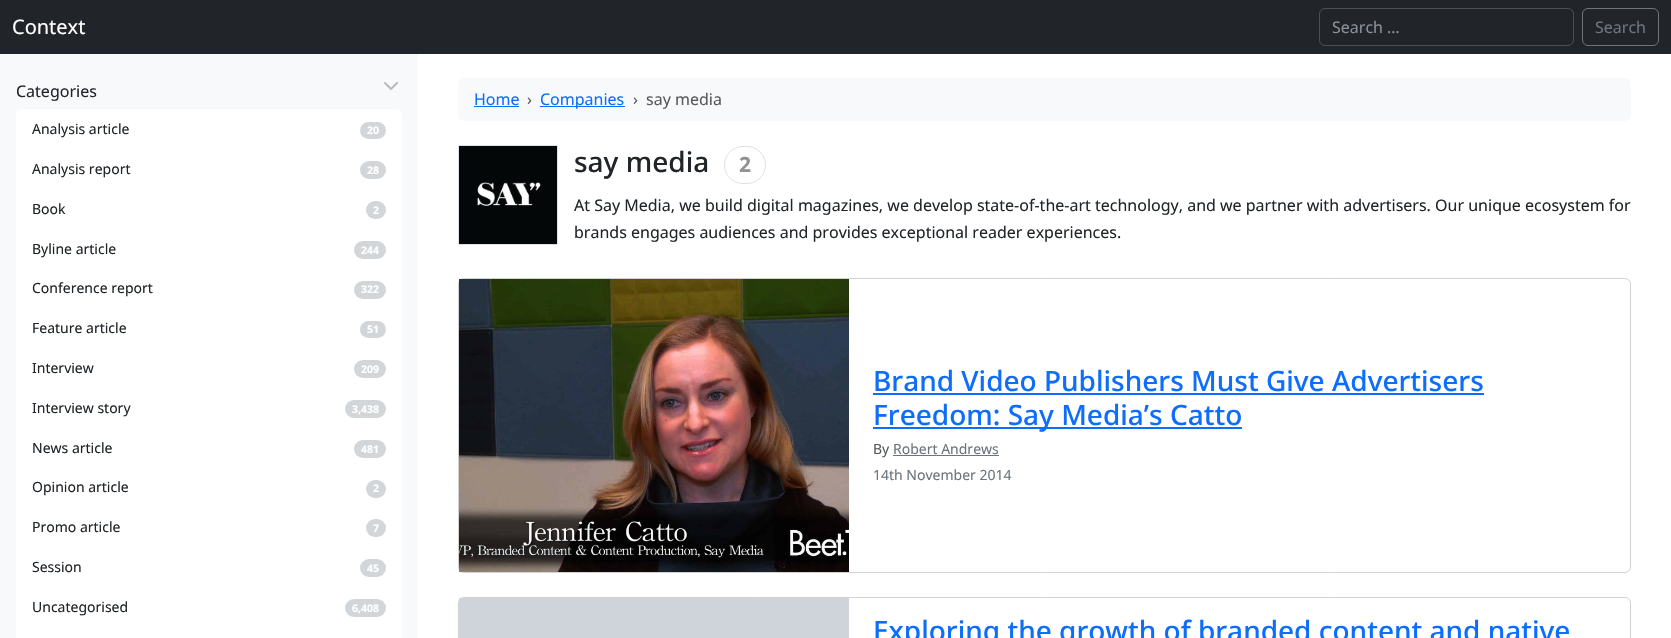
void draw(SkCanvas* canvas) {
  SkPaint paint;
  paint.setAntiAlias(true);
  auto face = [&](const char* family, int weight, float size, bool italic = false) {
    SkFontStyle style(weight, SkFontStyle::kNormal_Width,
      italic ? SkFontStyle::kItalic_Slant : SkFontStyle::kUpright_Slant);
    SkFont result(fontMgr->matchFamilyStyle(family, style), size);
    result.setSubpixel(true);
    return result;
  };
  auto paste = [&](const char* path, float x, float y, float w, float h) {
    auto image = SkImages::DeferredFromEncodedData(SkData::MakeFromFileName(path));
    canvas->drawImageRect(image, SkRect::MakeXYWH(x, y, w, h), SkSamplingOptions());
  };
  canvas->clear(0xffffffff);
  paint.setColor(0xff212529);
  canvas->drawRect(SkRect::MakeXYWH(0, 0, 1671, 54), paint);
  paint.setStroke(true);
  paint.setStrokeWidth(1);
  paint.setColor(0xff495057);
  canvas->drawRoundRect(SkRect::MakeXYWH(1319.5f, 8.5f, 254, 37), 5.5f, 5.5f, paint);
  paint.setColor(0xff6c757d);
  canvas->drawRoundRect(SkRect::MakeXYWH(1582.5f, 8.5f, 76, 37), 5.5f, 5.5f, paint);
  paint.setStroke(false);
  paint.setColor(0xfff8f9fa);
  canvas->drawRect(SkRect::MakeXYWH(0, 54, 418, 584), paint);
  paste("img/1.png", 384, 82, 14, 8);
  paint.setColor(0xffffffff);
  canvas->drawRoundRect(SkRect::MakeXYWH(16, 109, 386, 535), 6, 6, paint);
  paint.setColor(0xffd3d6d8);
  canvas->drawRoundRect(SkRect::MakeXYWH(360, 122, 26, 17), 8.5f, 8.5f, paint);
  canvas->drawRoundRect(SkRect::MakeXYWH(360, 161, 26, 18), 9, 9, paint);
  canvas->drawRoundRect(SkRect::MakeXYWH(366, 201, 20, 18), 9, 9, paint);
  canvas->drawRoundRect(SkRect::MakeXYWH(354, 241, 32, 18), 9, 9, paint);
  canvas->drawRoundRect(SkRect::MakeXYWH(354, 281, 32, 18), 9, 9, paint);
  canvas->drawRoundRect(SkRect::MakeXYWH(360, 321, 26, 17), 8.5f, 8.5f, paint);
  canvas->drawRoundRect(SkRect::MakeXYWH(354, 360, 32, 18), 9, 9, paint);
  canvas->drawRoundRect(SkRect::MakeXYWH(345, 400, 41, 18), 9, 9, paint);
  canvas->drawRoundRect(SkRect::MakeXYWH(354, 440, 32, 18), 9, 9, paint);
  canvas->drawRoundRect(SkRect::MakeXYWH(366, 480, 20, 18), 9, 9, paint);
  canvas->drawRoundRect(SkRect::MakeXYWH(366, 519, 20, 18), 9, 9, paint);
  canvas->drawRoundRect(SkRect::MakeXYWH(360, 559, 26, 18), 9, 9, paint);
  canvas->drawRoundRect(SkRect::MakeXYWH(345, 599, 41, 18), 9, 9, paint);
  paint.setColor(0xfff8f9fa);
  canvas->drawRoundRect(SkRect::MakeXYWH(458, 78, 1173, 43), 6, 6, paint);
  paint.setColor(0xff0d6efd);
  canvas->drawRect(SkRect::MakeXYWH(474, 106, 45, 1), paint);
  canvas->drawRect(SkRect::MakeXYWH(540, 106, 85, 1), paint);
  paint.setStroke(true);
  paint.setColor(0xffdee2e6);
  canvas->drawRect(SkRect::MakeXYWH(458.5f, 145.5f, 99, 99), paint);
  paste("img/2.png", 459, 146, 98, 98);
  canvas->drawRoundRect(SkRect::MakeXYWH(724.5f, 146.5f, 41, 37), 18.5f, 18.5f, paint);
  paint.setColor(0xffd2d2d2);
  canvas->drawRoundRect(SkRect::MakeXYWH(458.5f, 278.5f, 1172, 294), 5.5f, 5.5f, paint);
  paste("img/3.png", 459, 279, 390, 293);
  paint.setStroke(false);
  {
    const struct { float x, y, w, h; SkColor color; } items[] = {
      {873, 393, 611, 2, 0xff0d6efd},
      {873, 427, 369, 2, 0xff0d6efd},
      {893, 455, 106, 1, 0xff6c757d},
    };
    for (auto [x, y, w, h, color] : items) {
      paint.setColor(color);
      canvas->drawRect(SkRect::MakeXYWH(x, y, w, h), paint);
    }
  }
  paint.setStroke(true);
  paint.setColor(0xffd2d2d2);
  canvas->drawRoundRect(SkRect::MakeXYWH(458.5f, 597.5f, 1172, 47), 5.5f, 5.5f, paint);
  paint.setStroke(false);
  paint.setColor(0xffced4da);
  canvas->drawRect(SkRect::MakeXYWH(459, 598, 390, 40), paint);
  auto f0 = face("Noto Sans", 400, 20);
  paint.setColor(0xffffffff);
  canvas->drawString("Context", 12, 34, f0, paint);
  auto f1 = face("Noto Sans", 400, 16);
  paint.setColor(0xff8a9198);
  canvas->drawString("Search …", 1332, 33, f1, paint);
  paint.setColor(0xff6c757d);
  canvas->drawString("Search", 1595, 33, f1, paint);
  paint.setColor(0xff212529);
  canvas->drawString("Categories", 16, 97, f1, paint);
  auto f2 = face("Noto Sans", 400, 14);
  canvas->drawString("Analysis article", 32, 134, f2, paint);
  auto f3 = face("Noto Sans", 700, 10.5f);
  paint.setColor(0xffffffff);
  canvas->drawString("20", 367, 134, f3, paint);
  paint.setColor(0xff212529);
  canvas->drawString("Analysis report", 32, 174, f2, paint);
  paint.setColor(0xffffffff);
  canvas->drawString("28", 367, 174, f3, paint);
  paint.setColor(0xff212529);
  canvas->drawString("Book", 32, 214, f2, paint);
  paint.setColor(0xffffffff);
  canvas->drawString("2", 373, 214, f3, paint);
  paint.setColor(0xff212529);
  canvas->drawString("Byline article", 32, 254, f2, paint);
  paint.setColor(0xffffffff);
  canvas->drawString("244", 361, 254, f3, paint);
  paint.setColor(0xff212529);
  canvas->drawString("Conference report", 32, 293, f2, paint);
  paint.setColor(0xffffffff);
  canvas->drawString("322", 361, 293, f3, paint);
  paint.setColor(0xff212529);
  canvas->drawString("Feature article", 32, 333, f2, paint);
  paint.setColor(0xffffffff);
  canvas->drawString("51", 367, 333, f3, paint);
  paint.setColor(0xff212529);
  canvas->drawString("Interview", 32, 373, f2, paint);
  paint.setColor(0xffffffff);
  canvas->drawString("209", 361, 373, f3, paint);
  paint.setColor(0xff212529);
  canvas->drawString("Interview story", 32, 413, f2, paint);
  paint.setColor(0xffffffff);
  canvas->drawString("3,438", 352, 413, f3, paint);
  paint.setColor(0xff212529);
  canvas->drawString("News article", 32, 453, f2, paint);
  paint.setColor(0xffffffff);
  canvas->drawString("481", 361, 453, f3, paint);
  paint.setColor(0xff212529);
  canvas->drawString("Opinion article", 32, 492, f2, paint);
  paint.setColor(0xffffffff);
  canvas->drawString("2", 373, 492, f3, paint);
  paint.setColor(0xff212529);
  canvas->drawString("Promo article", 32, 532, f2, paint);
  paint.setColor(0xffffffff);
  canvas->drawString("7", 373, 532, f3, paint);
  paint.setColor(0xff212529);
  canvas->drawString("Session", 32, 572, f2, paint);
  paint.setColor(0xffffffff);
  canvas->drawString("45", 367, 572, f3, paint);
  paint.setColor(0xff212529);
  canvas->drawString("Uncategorised", 32, 612, f2, paint);
  paint.setColor(0xffffffff);
  canvas->drawString("6,408", 352, 612, f3, paint);
  paint.setColor(0xff0d6efd);
  canvas->drawString("Home", 474, 105, f1, paint);
  paint.setColor(0xff575a5d);
  canvas->drawString("›", 527, 105, f1, paint);
  paint.setColor(0xff0d6efd);
  canvas->drawString("Companies", 540, 105, f1, paint);
  paint.setColor(0xff575a5d);
  canvas->drawString("›", 633, 105, f1, paint);
  canvas->drawString("say media", 646, 105, f1, paint);
  auto f4 = face("Noto Sans", 500, 28);
  paint.setColor(0xff212529);
  canvas->drawString("say media", 574, 172, f4, paint);
  auto f5 = face("Noto Sans", 700, 21);
  paint.setColor(0xff909294);
  canvas->drawString("2", 739, 172, f5, paint);
  paint.setColor(0xff212529);
  canvas->drawString("At Say Media, we build digital magazines, we develop state-of-the-art technology, and we partner with advertisers. Our unique ecosystem for", 574, 211, f1, paint);
  canvas->drawString("brands engages audiences and provides exceptional reader experiences.", 574, 238, f1, paint);
  paint.setColor(0xff0d6efd);
  canvas->drawString("Brand Video Publishers Must Give Advertisers", 873, 391, f4, paint);
  canvas->drawString("Freedom: Say Media’s Catto", 873, 425, f4, paint);
  paint.setColor(0xff575a5d);
  canvas->drawString("By", 873, 454, f2, paint);
  paint.setColor(0xff6c757d);
  canvas->drawString("Robert Andrews", 893, 454, f2, paint);
  canvas->drawString("14th November 2014", 873, 480, f2, paint);
  paint.setColor(0xff0d6efd);
  canvas->drawString("Exploring the growth of branded content and native", 873, 641, f4, paint);
}
